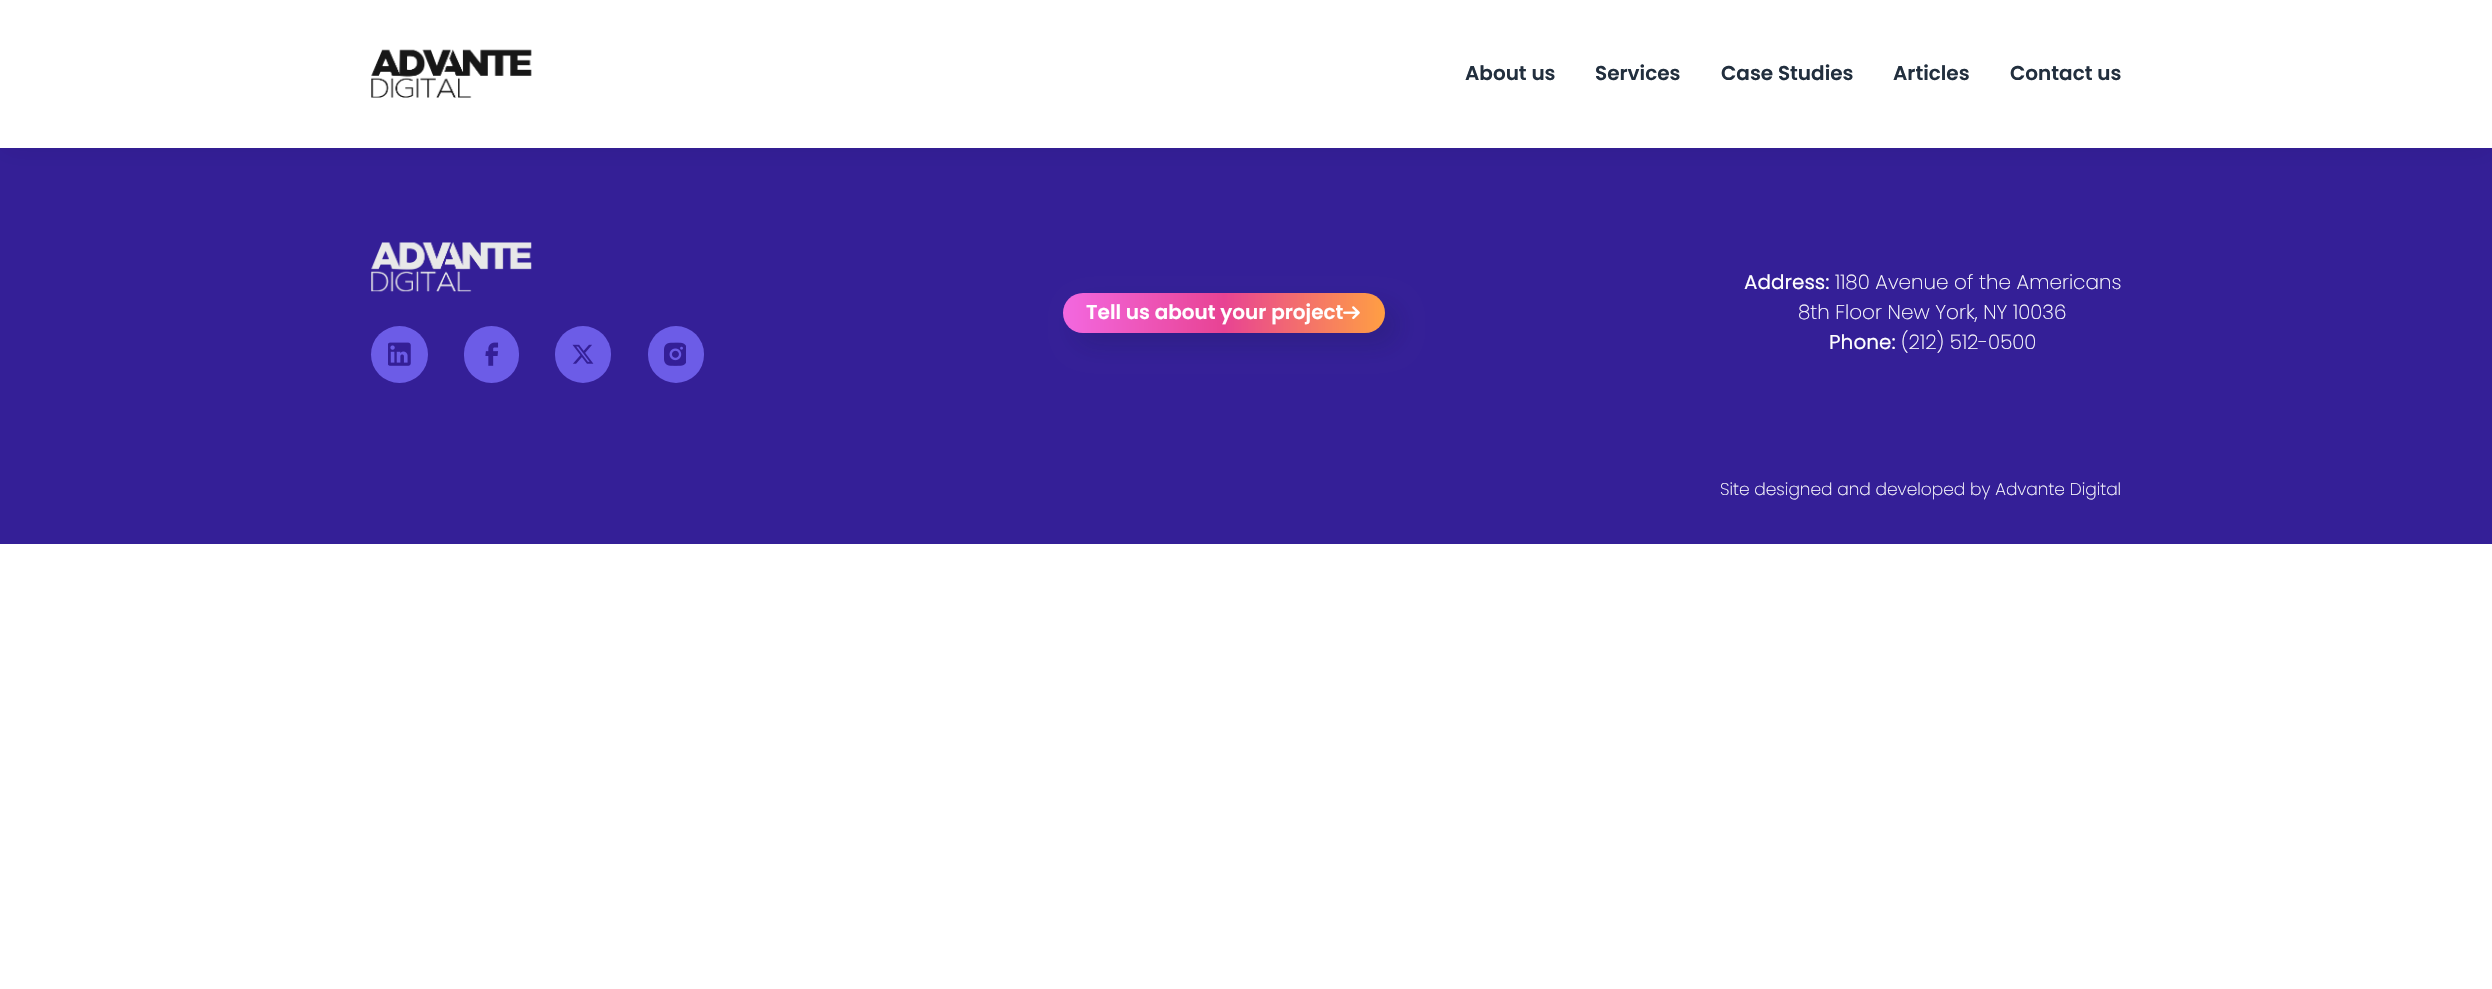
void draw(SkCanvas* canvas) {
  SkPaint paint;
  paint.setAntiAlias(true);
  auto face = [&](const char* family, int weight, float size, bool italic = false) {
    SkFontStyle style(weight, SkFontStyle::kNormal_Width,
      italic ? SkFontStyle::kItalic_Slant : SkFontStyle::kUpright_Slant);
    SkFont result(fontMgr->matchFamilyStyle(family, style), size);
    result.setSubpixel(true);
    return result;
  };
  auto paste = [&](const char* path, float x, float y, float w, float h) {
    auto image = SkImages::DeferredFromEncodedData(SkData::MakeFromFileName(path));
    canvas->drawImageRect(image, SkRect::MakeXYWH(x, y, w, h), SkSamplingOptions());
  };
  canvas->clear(0xffffffff);
  paint.setColor(0xff341f97);
  canvas->drawRect(SkRect::MakeXYWH(0, 148, 2492, 396), paint);
  paint.setColor(0x0d000000);
  paint.setMaskFilter(SkMaskFilter::MakeBlur(kNormal_SkBlurStyle, 12.5f));
  canvas->drawRect(SkRect::MakeXYWH(0, 5, 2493, 148), paint);
  paint.setMaskFilter(nullptr);
  paint.setColor(0xffffffff);
  canvas->drawRect(SkRect::MakeXYWH(0, 0, 2492, 148), paint);
  paste("img/1.png", 371, 49, 161, 49);
  paste("img/2.png", 371, 242, 161, 50);
  paint.setColor(0xff6c5ce7);
  canvas->drawCircle(399.5f, 354.5f, 28.5f, paint);
  paste("img/3.png", 388, 342, 23, 24);
  canvas->drawRoundRect(SkRect::MakeXYWH(464, 326, 55, 57), 27.5f, 27.5f, paint);
  paste("img/4.png", 485, 342, 14, 24);
  canvas->drawRoundRect(SkRect::MakeXYWH(555, 326, 56, 57), 28, 28, paint);
  paste("img/5.png", 572, 344, 22, 20);
  canvas->drawRoundRect(SkRect::MakeXYWH(648, 326, 56, 57), 28, 28, paint);
  paste("img/6.png", 664, 342, 22, 24);
  paint.setColor(0x26101828);
  paint.setMaskFilter(SkMaskFilter::MakeBlur(kNormal_SkBlurStyle, 12.5f));
  canvas->drawRoundRect(SkRect::MakeXYWH(1075, 305, 323, 40), 20, 20, paint);
  paint.setMaskFilter(nullptr);
  {
    const SkColor colors[] = {0xfff368e0, 0xffe84393, 0xffff9f43};
    const float stops[] = {0, 0.5f, 1};
    const SkPoint ends[] = {{1063, 313}, {1385, 313}};
    paint.setShader(SkGradientShader::MakeLinear(ends, colors, stops, 3, SkTileMode::kClamp));
    paint.setAlpha(255);
  }
  canvas->drawRoundRect(SkRect::MakeXYWH(1063, 293, 322, 40), 20, 20, paint);
  paste("img/7.png", 1343, 306, 17, 13);
  auto f0 = face("Poppins", 600, 20);
  paint.setShader(nullptr);
  paint.setColor(0xff222f3e);
  {
    const struct { const char* s; float x, y; } items[] = {
      {"About us", 1465, 80},
      {"Services", 1595, 80},
      {"Case Studies", 1721, 80},
      {"Articles", 1893, 80},
      {"Contact us", 2010, 80},
    };
    for (auto [s, x, y] : items) {
      canvas->drawString(s, x, y, f0, paint);
    }
  }
  paint.setColor(0xffffffff);
  canvas->drawString("Tell us about your project", 1086, 319, f0, paint);
  auto f1 = face("Poppins", 400, 20);
  canvas->drawString("Address:", 1744, 289, f1, paint);
  auto f2 = face("Poppins", 200, 20);
  canvas->drawString("1180 Avenue of the Americans", 1835, 289, f2, paint);
  canvas->drawString("8th Floor New York, NY 10036", 1798, 319, f2, paint);
  canvas->drawString("Phone:", 1829, 349, f1, paint);
  canvas->drawString("(212) 512-0500", 1901, 349, f2, paint);
  auto f3 = face("Poppins", 200, 17);
  canvas->drawString("Site designed and developed by Advante Digital", 1720, 495, f3, paint);
}
